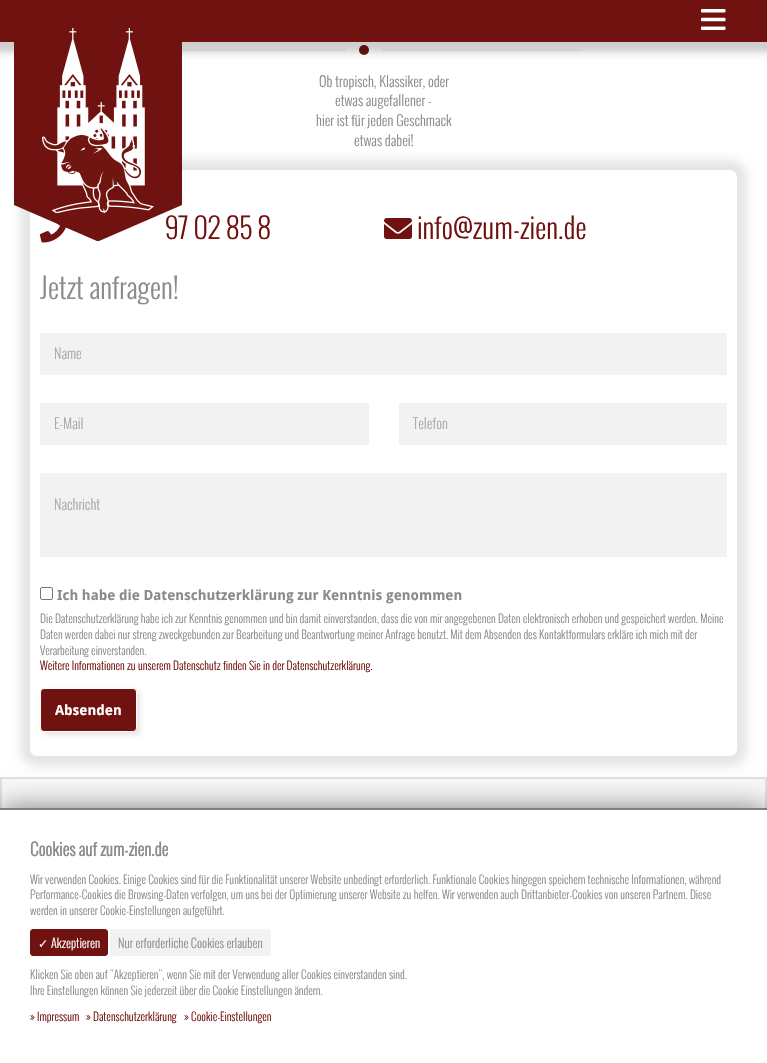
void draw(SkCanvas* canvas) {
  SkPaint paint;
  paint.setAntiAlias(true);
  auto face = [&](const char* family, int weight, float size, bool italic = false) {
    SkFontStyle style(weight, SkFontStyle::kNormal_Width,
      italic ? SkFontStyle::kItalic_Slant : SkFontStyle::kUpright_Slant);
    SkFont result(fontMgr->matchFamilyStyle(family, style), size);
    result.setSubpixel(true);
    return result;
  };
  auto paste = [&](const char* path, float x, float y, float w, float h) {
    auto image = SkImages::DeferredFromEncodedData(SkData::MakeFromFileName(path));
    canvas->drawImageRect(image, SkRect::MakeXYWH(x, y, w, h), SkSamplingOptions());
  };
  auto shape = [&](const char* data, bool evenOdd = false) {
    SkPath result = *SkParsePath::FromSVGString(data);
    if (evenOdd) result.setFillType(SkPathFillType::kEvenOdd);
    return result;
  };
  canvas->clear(0xffffffff);
  paint.setStroke(true);
  paint.setStrokeWidth(0.5f);
  paint.setColor(0xffcfcfcf);
  canvas->drawPath(shape("M145.5 50H346"), paint);
  canvas->drawPath(shape("M382 50H582.5"), paint);
  paint.setStroke(false);
  paint.setColor(0xff70120f);
  canvas->drawCircle(364, 50, 5, paint);
  paint.setColor(0x1a000000);
  paint.setMaskFilter(SkMaskFilter::MakeBlur(kNormal_SkBlurStyle, 2.5f));
  canvas->drawRect(SkRect::MakeXYWH(-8, -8, 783, 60), paint);
  paint.setMaskFilter(nullptr);
  paint.setMaskFilter(SkMaskFilter::MakeBlur(kNormal_SkBlurStyle, 5));
  canvas->drawRect(SkRect::MakeXYWH(-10, -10, 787, 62), paint);
  paint.setMaskFilter(nullptr);
  paint.setColor(0xff70120f);
  canvas->drawRect(SkRect::MakeXYWH(0, 0, 767, 42), paint);
  paint.setColor(0x1a000000);
  paint.setMaskFilter(SkMaskFilter::MakeBlur(kNormal_SkBlurStyle, 5));
  canvas->drawRoundRect(SkRect::MakeXYWH(20, 160, 727, 606), 17, 17, paint);
  paint.setMaskFilter(nullptr);
  paint.setColor(0xffffffff);
  canvas->drawRoundRect(SkRect::MakeXYWH(30, 170, 707, 586), 7, 7, paint);
  paste("img/3.png", 40, 223, 26, 20);
  canvas->save();
  canvas->clipPath(shape("M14 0H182V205L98 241.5L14 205Z"), true);
  paint.setColor(0x1a000000);
  paint.setMaskFilter(SkMaskFilter::MakeBlur(kNormal_SkBlurStyle, 5));
  canvas->drawRect(SkRect::MakeXYWH(4, -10, 188, 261), paint);
  paint.setMaskFilter(nullptr);
  canvas->restore();
  paint.setColor(0xff70120f);
  canvas->drawPath(shape("M14 0V205L97 241H99L182 205V0Z"), paint);
  paste("img/1.png", 42, 28, 112, 185);
  paste("img/2.png", 701, 9, 25, 21);
  paste("img/4.png", 384, 218, 28, 21);
  {
    const struct { float x, y, w, h; SkColor color; } items[] = {
      {40, 333, 687, 42, 0xfff2f2f2},
      {40, 403, 329, 42, 0xfff2f2f2},
      {399, 403, 328, 42, 0xfff2f2f2},
      {40, 473, 687, 84, 0xfff2f2f2},
    };
    for (auto [x, y, w, h, color] : items) {
      paint.setColor(color);
      canvas->drawRect(SkRect::MakeXYWH(x, y, w, h), paint);
    }
  }
  paint.setStroke(true);
  paint.setStrokeWidth(1);
  paint.setColor(0xff767676);
  canvas->drawRoundRect(SkRect::MakeXYWH(40.5f, 587.5f, 12, 12), 1.5f, 1.5f, paint);
  paint.setStroke(false);
  paint.setColor(0x1a000000);
  paint.setMaskFilter(SkMaskFilter::MakeBlur(kNormal_SkBlurStyle, 2.5f));
  canvas->drawRoundRect(SkRect::MakeXYWH(43, 691, 97, 44), 4, 4, paint);
  paint.setMaskFilter(nullptr);
  paint.setColor(0xff70120f);
  canvas->drawRoundRect(SkRect::MakeXYWH(40.5f, 688.5f, 96, 43), 3.5f, 3.5f, paint);
  paint.setStroke(true);
  paint.setColor(0xffffffff);
  canvas->drawRoundRect(SkRect::MakeXYWH(40.5f, 688.5f, 96, 43), 3.5f, 3.5f, paint);
  paint.setStroke(false);
  paint.setColor(0xfff8f9fa);
  canvas->drawRect(SkRect::MakeXYWH(2, 779, 763, 29), paint);
  paint.setStroke(true);
  paint.setStrokeWidth(2);
  paint.setColor(0xffdfe0e1);
  canvas->drawRect(SkRect::MakeXYWH(1, 778, 765, 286), paint);
  paint.setStroke(false);
  paint.setColor(0x80000000);
  paint.setMaskFilter(SkMaskFilter::MakeBlur(kNormal_SkBlurStyle, 14));
  canvas->drawRect(SkRect::MakeXYWH(0, 808, 767, 255), paint);
  paint.setMaskFilter(nullptr);
  paint.setColor(0xffffffff);
  canvas->drawRect(SkRect::MakeXYWH(0, 810, 767, 253), paint);
  paint.setColor(0xff808080);
  canvas->drawRect(SkRect::MakeXYWH(0, 808, 767, 2), paint);
  paint.setColor(0xff70120f);
  canvas->drawRoundRect(SkRect::MakeXYWH(30.5f, 929.5f, 77, 26), 2.5f, 2.5f, paint);
  paint.setStroke(true);
  paint.setStrokeWidth(1);
  canvas->drawRoundRect(SkRect::MakeXYWH(30.5f, 929.5f, 77, 26), 2.5f, 2.5f, paint);
  paint.setStroke(false);
  paint.setColor(0xfff2f2f2);
  canvas->drawRoundRect(SkRect::MakeXYWH(110.5f, 929.5f, 160, 26), 2.5f, 2.5f, paint);
  paint.setStroke(true);
  canvas->drawRoundRect(SkRect::MakeXYWH(110.5f, 929.5f, 160, 26), 2.5f, 2.5f, paint);
  auto f0 = face("Oswald", 300, 14);
  paint.setStroke(false);
  paint.setColor(0xff8b8b8b);
  {
    const struct { const char* s; float x, y; } items[] = {
      {"Ob tropisch, Klassiker, oder", 319, 87},
      {"etwas augefallener -", 335, 106},
      {"hier ist für jeden Geschmack", 316, 126},
      {"etwas dabei!", 354, 146},
    };
    for (auto [s, x, y] : items) {
      canvas->drawString(s, x, y, f0, paint);
    }
  }
  auto f1 = face("Oswald", 300, 28);
  paint.setColor(0xff70120f);
  canvas->drawString("97 02 85 8", 165, 239, f1, paint);
  canvas->drawString("info@zum-zien.de", 417, 239, f1, paint);
  paint.setColor(0xff8b8b8b);
  canvas->drawString("Jetzt anfragen!", 40, 299, f1, paint);
  paint.setColor(0xffa9a9a9);
  {
    const struct { const char* s; float x, y; } items[] = {
      {"Name", 54, 359},
      {"E-Mail", 54, 429},
      {"Telefon", 413, 429},
      {"Nachricht", 54, 510},
    };
    for (auto [s, x, y] : items) {
      canvas->drawString(s, x, y, f0, paint);
    }
  }
  auto f2 = face("Droid Sans", 700, 14);
  paint.setColor(0xff8b8b8b);
  canvas->drawString("Ich habe die Datenschutzerklärung zur Kenntnis genommen", 57, 600, f2, paint);
  auto f3 = face("Oswald", 300, 11.2f);
  {
    const struct { const char* s; float x, y; } items[] = {
      {"Die Datenschutzerklärung habe ich zur Kenntnis genommen und bin damit einverstanden, dass die von mir angegebenen Daten elektronisch erhoben und gespeichert werden. Meine", 40, 623},
      {"Daten werden dabei nur streng zweckgebunden zur Bearbeitung und Beantwortung meiner Anfrage benutzt. Mit dem Absenden des Kontaktformulars erkläre ich mich mit der", 40, 639},
      {"Verarbeitung einverstanden.", 40, 655},
    };
    for (auto [s, x, y] : items) {
      canvas->drawString(s, x, y, f3, paint);
    }
  }
  paint.setColor(0xff70120f);
  canvas->drawString("Weitere Informationen zu unserem Datenschutz finden Sie in der Datenschutzerklärung.", 40, 670, f3, paint);
  paint.setColor(0xffffffff);
  canvas->drawString("Absenden", 55, 715, f2, paint);
  auto f4 = face("Oswald", 700, 16.75f);
  paint.setColor(0xff8b8b8b);
  canvas->drawString("Cookies auf zum-zien.de", 30, 856, f4, paint);
  {
    const struct { const char* s; float x, y; } items[] = {
      {"Wir verwenden Cookies. Einige Cookies sind für die Funktionalität unserer Website unbedingt erforderlich. Funktionale Cookies hingegen speichern technische Informationen, während", 30, 884},
      {"Performance-Cookies die Browsing-Daten verfolgen, um uns bei der Optimierung unserer Website zu helfen. Wir verwenden auch Drittanbieter-Cookies von unseren Partnern. Diese", 30, 899},
      {"werden in unserer Cookie-Einstellungen aufgeführt.", 30, 915},
    };
    for (auto [s, x, y] : items) {
      canvas->drawString(s, x, y, f3, paint);
    }
  }
  auto f5 = face("DejaVu Sans", 400, 12.25f);
  paint.setColor(0xffffffff);
  canvas->drawString("✓", 38, 948, f5, paint);
  auto f6 = face("Oswald", 300, 12.25f);
  canvas->drawString("Akzeptieren", 51, 948, f6, paint);
  paint.setColor(0xff8b8b8b);
  canvas->drawString("Nur erforderliche Cookies erlauben", 118, 948, f6, paint);
  canvas->drawString("Klicken Sie oben auf \"Akzeptieren\", wenn Sie mit der Verwendung aller Cookies einverstanden sind.", 30, 979, f3, paint);
  canvas->drawString("Ihre Einstellungen können Sie jederzeit über die Cookie Einstellungen ändern.", 30, 995, f3, paint);
  paint.setColor(0xff70120f);
  {
    const struct { const char* s; float x, y; } items[] = {
      {"» Impressum", 30, 1021},
      {"» Datenschutzerklärung", 86, 1021},
      {"» Cookie-Einstellungen", 184, 1021},
    };
    for (auto [s, x, y] : items) {
      canvas->drawString(s, x, y, f3, paint);
    }
  }
}
